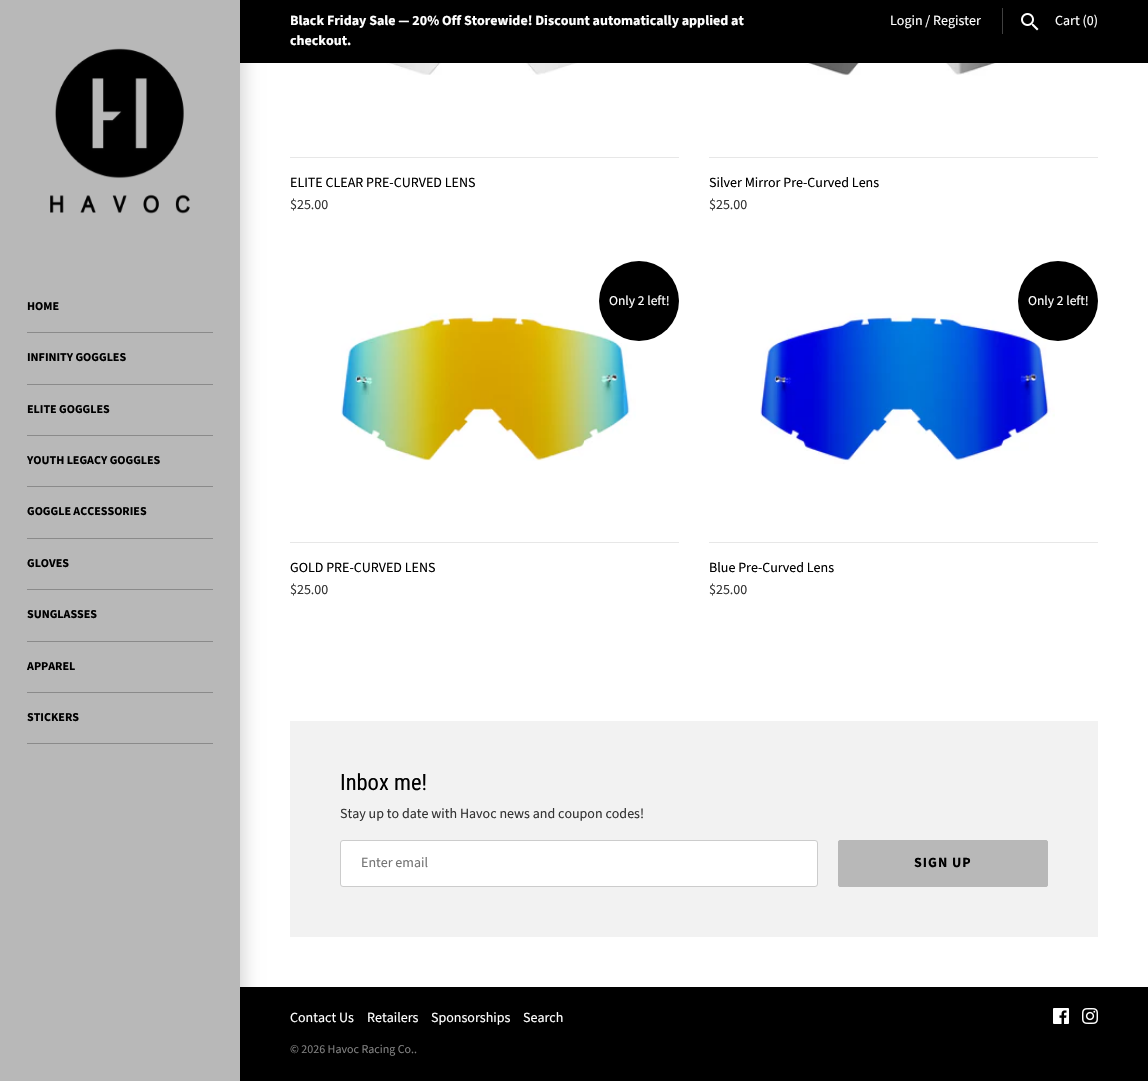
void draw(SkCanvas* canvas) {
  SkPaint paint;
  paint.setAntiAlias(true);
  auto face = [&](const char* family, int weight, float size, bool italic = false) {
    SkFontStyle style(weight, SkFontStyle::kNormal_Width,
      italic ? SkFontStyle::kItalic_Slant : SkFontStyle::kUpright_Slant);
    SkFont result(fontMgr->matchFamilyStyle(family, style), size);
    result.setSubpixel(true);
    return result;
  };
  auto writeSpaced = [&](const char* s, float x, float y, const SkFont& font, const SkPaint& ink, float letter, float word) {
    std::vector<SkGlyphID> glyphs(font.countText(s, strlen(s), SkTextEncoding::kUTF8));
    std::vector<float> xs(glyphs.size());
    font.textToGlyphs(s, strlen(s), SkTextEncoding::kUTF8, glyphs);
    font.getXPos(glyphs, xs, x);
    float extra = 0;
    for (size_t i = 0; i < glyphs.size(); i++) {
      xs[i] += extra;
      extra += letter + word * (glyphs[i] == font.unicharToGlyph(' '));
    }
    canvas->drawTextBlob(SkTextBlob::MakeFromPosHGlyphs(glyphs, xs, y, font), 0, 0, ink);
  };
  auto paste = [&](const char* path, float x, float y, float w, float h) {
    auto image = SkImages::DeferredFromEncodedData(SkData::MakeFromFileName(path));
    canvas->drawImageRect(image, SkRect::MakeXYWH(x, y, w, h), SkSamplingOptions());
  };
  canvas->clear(0xffffffff);
  paint.setColor(0xff000000);
  canvas->drawRect(SkRect::MakeXYWH(240, 0, 908, 63), paint);
  paint.setColor(0xff404040);
  canvas->drawRect(SkRect::MakeXYWH(1002, 8, 1, 26), paint);
  paste("img/1.png", 1021, 13, 18, 18);
  paint.setColor(0xff000000);
  canvas->drawRect(SkRect::MakeXYWH(240, 987, 908, 94), paint);
  paint.setColor(0x26000000);
  paint.setMaskFilter(SkMaskFilter::MakeBlur(kNormal_SkBlurStyle, 7.5f));
  canvas->drawRect(SkRect::MakeXYWH(-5, -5, 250, 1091), paint);
  paint.setMaskFilter(nullptr);
  paint.setColor(0xffb8b8b8);
  canvas->drawRect(SkRect::MakeXYWH(0, 0, 240, 1081), paint);
  paste("img/2.png", 50, 48, 140, 166);
  {
    const struct { float x, y, w, h; SkColor color; } items[] = {
      {27, 332, 186, 1, 0xff8a8a8a},
      {27, 384, 186, 1, 0xff8a8a8a},
      {27, 435, 186, 1, 0xff8a8a8a},
      {27, 486, 186, 1, 0xff8a8a8a},
      {27, 538, 186, 1, 0xff8a8a8a},
      {27, 589, 186, 1, 0xff8a8a8a},
      {27, 641, 186, 1, 0xff8a8a8a},
      {27, 692, 186, 1, 0xff8a8a8a},
      {27, 743, 186, 1, 0xff8a8a8a},
    };
    for (auto [x, y, w, h, color] : items) {
      paint.setColor(color);
      canvas->drawRect(SkRect::MakeXYWH(x, y, w, h), paint);
    }
  }
  paste("img/3.png", 341, 63, 289, 12);
  paint.setColor(0xffe7e7e7);
  canvas->drawRect(SkRect::MakeXYWH(290, 157, 389, 1), paint);
  paste("img/4.png", 760, 63, 289, 13);
  canvas->drawRect(SkRect::MakeXYWH(709, 157, 389, 1), paint);
  paste("img/5.png", 341, 313, 295, 148);
  paint.setColor(0xff000000);
  canvas->drawCircle(639, 301, 40, paint);
  paint.setColor(0xffe7e7e7);
  canvas->drawRect(SkRect::MakeXYWH(290, 542, 389, 1), paint);
  paste("img/6.png", 760, 313, 295, 151);
  paint.setColor(0xff000000);
  canvas->drawCircle(1058, 301, 40, paint);
  paint.setColor(0xffe7e7e7);
  canvas->drawRect(SkRect::MakeXYWH(709, 542, 389, 1), paint);
  paint.setColor(0xfff2f2f2);
  canvas->drawRect(SkRect::MakeXYWH(290, 721, 808, 216), paint);
  paint.setColor(0xffffffff);
  canvas->drawRoundRect(SkRect::MakeXYWH(340.5f, 840.5f, 477, 46), 2.5f, 2.5f, paint);
  paint.setStroke(true);
  paint.setStrokeWidth(1);
  paint.setColor(0xffcccccc);
  canvas->drawRoundRect(SkRect::MakeXYWH(340.5f, 840.5f, 477, 46), 2.5f, 2.5f, paint);
  paint.setStroke(false);
  paint.setColor(0xffb8b8b8);
  canvas->drawRoundRect(SkRect::MakeXYWH(838.5f, 840.5f, 209, 46), 1.5f, 1.5f, paint);
  paint.setStroke(true);
  canvas->drawRoundRect(SkRect::MakeXYWH(838.5f, 840.5f, 209, 46), 1.5f, 1.5f, paint);
  paste("img/7.png", 1053, 1008, 16, 16);
  paste("img/8.png", 1082, 1008, 16, 16);
  auto f0 = face("Source Sans Pro", 700, 14);
  paint.setStroke(false);
  paint.setColor(0xffffffff);
  canvas->drawString("Black Friday Sale — 20% Off Storewide! Discount automatically applied at", 290, 25, f0, paint);
  canvas->drawString("checkout.", 290, 45, f0, paint);
  auto f1 = face("Source Sans Pro", 400, 14);
  canvas->drawString("Login / Register", 890, 25, f1, paint);
  canvas->drawString("Cart (0)", 1055, 25, f1, paint);
  auto f2 = face("Source Sans Pro", 700, 12);
  paint.setColor(0xff000000);
  {
    const struct { const char* s; float x, y; } items[] = {
      {"HOME", 27, 310},
      {"INFINITY GOGGLES", 27, 361},
      {"ELITE GOGGLES", 27, 413},
      {"YOUTH LEGACY GOGGLES", 27, 464},
      {"GOGGLE ACCESSORIES", 27, 515},
      {"GLOVES", 27, 567},
      {"SUNGLASSES", 27, 618},
      {"APPAREL", 27, 670},
      {"STICKERS", 27, 721},
    };
    for (auto [s, x, y] : items) {
      canvas->drawString(s, x, y, f2, paint);
    }
  }
  canvas->drawString("ELITE CLEAR PRE-CURVED LENS", 290, 187, f1, paint);
  paint.setColor(0xff343434);
  canvas->drawString("$25.00", 290, 209, f1, paint);
  paint.setColor(0xff000000);
  canvas->drawString("Silver Mirror Pre-Curved Lens", 709, 187, f1, paint);
  paint.setColor(0xff343434);
  canvas->drawString("$25.00", 709, 209, f1, paint);
  auto f3 = face("Source Sans Pro", 400, 13.5f);
  paint.setColor(0xffffffff);
  canvas->drawString("Only 2 left!", 609, 305, f3, paint);
  paint.setColor(0xff000000);
  canvas->drawString("GOLD PRE-CURVED LENS", 290, 572, f1, paint);
  paint.setColor(0xff343434);
  canvas->drawString("$25.00", 290, 594, f1, paint);
  paint.setColor(0xffffffff);
  canvas->drawString("Only 2 left!", 1028, 305, f3, paint);
  paint.setColor(0xff000000);
  canvas->drawString("Blue Pre-Curved Lens", 709, 572, f1, paint);
  paint.setColor(0xff343434);
  canvas->drawString("$25.00", 709, 594, f1, paint);
  auto f4 = face("Roboto Condensed", 400, 22.5f);
  paint.setColor(0xff000000);
  canvas->drawString("Inbox me!", 340, 790, f4, paint);
  paint.setColor(0xff343434);
  canvas->drawString("Stay up to date with Havoc news and coupon codes!", 340, 818, f1, paint);
  paint.setColor(0xff757575);
  canvas->drawString("Enter email", 361, 867, f1, paint);
  paint.setColor(0xff000000);
  writeSpaced("SIGN UP", 914, 867, f0, paint, 1, 0);
  paint.setColor(0xffffffff);
  {
    const struct { const char* s; float x, y; } items[] = {
      {"Contact Us", 290, 1022},
      {"Retailers", 367, 1022},
      {"Sponsorships", 431, 1022},
      {"Search", 523, 1022},
    };
    for (auto [s, x, y] : items) {
      canvas->drawString(s, x, y, f1, paint);
    }
  }
  auto f5 = face("Source Sans Pro", 400, 12);
  paint.setColor(0xff7f7f7f);
  canvas->drawString("© 2026 Havoc Racing Co..", 290, 1053, f5, paint);
}
